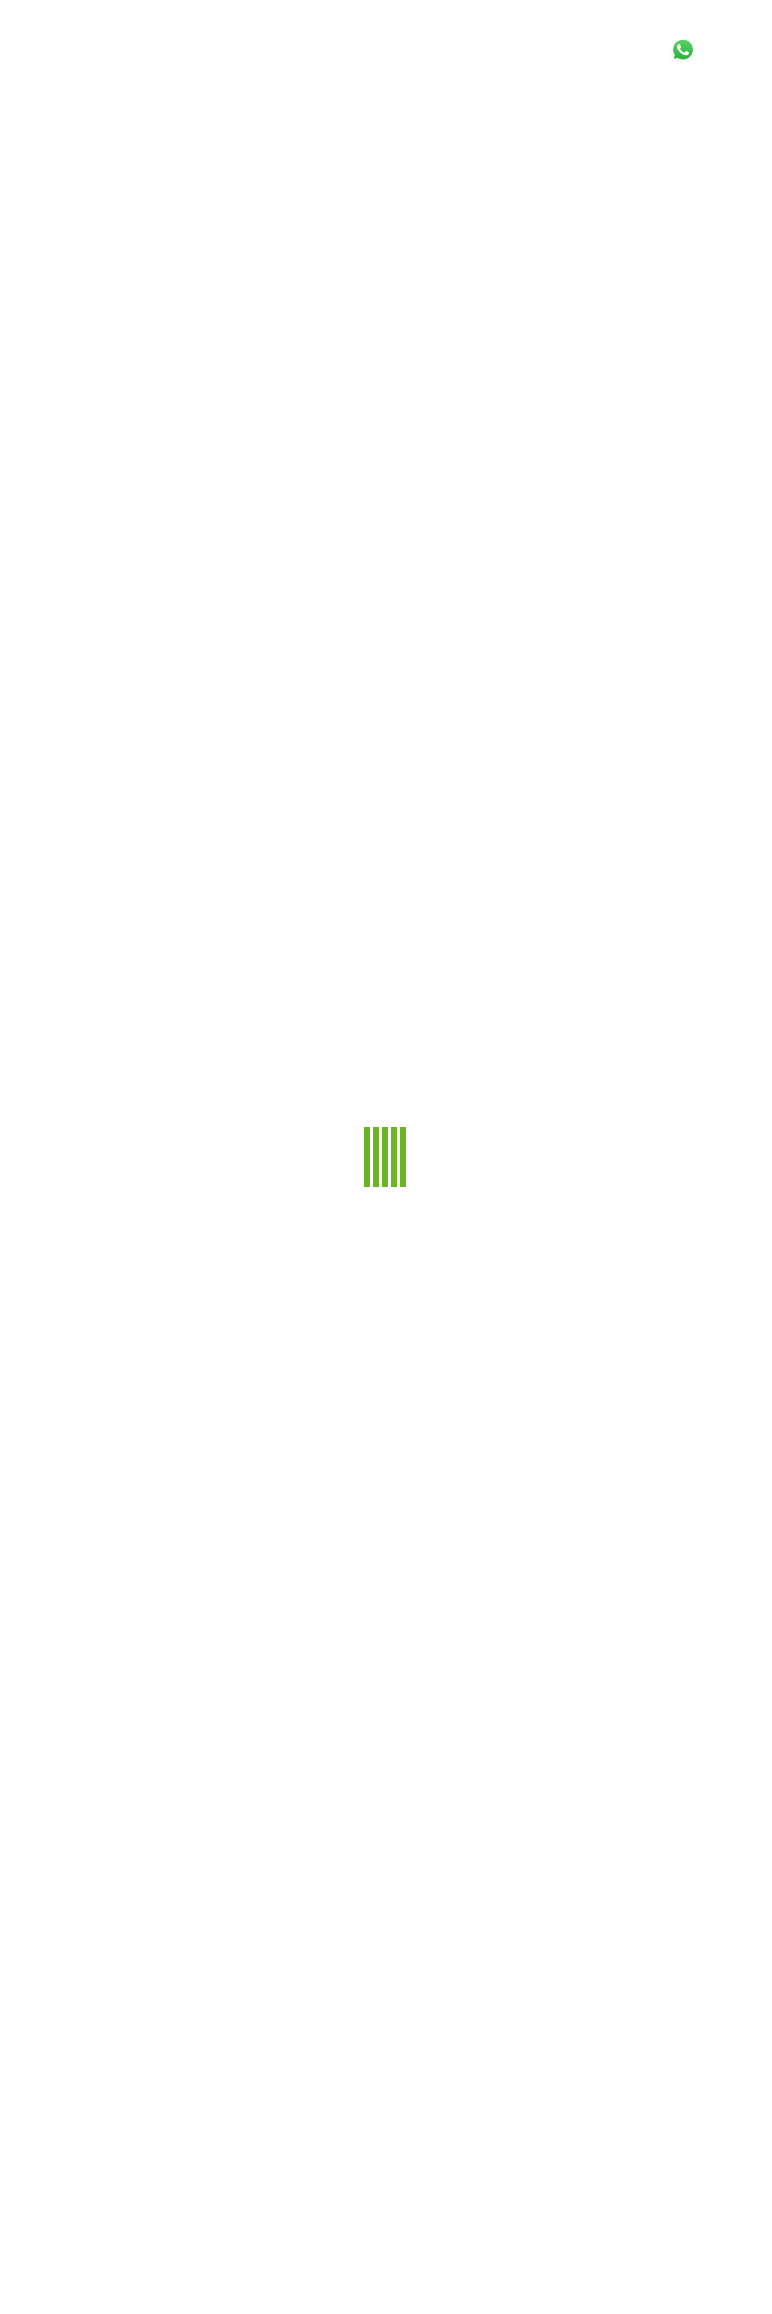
void draw(SkCanvas* canvas) {
  SkPaint paint;
  paint.setAntiAlias(true);
  auto paste = [&](const char* path, float x, float y, float w, float h) {
    auto image = SkImages::DeferredFromEncodedData(SkData::MakeFromFileName(path));
    canvas->drawImageRect(image, SkRect::MakeXYWH(x, y, w, h), SkSamplingOptions());
  };
  canvas->clear(0xffffffff);
  paste("img/1.png", 671, 39, 24, 23);
  {
    const struct { float x, y, w, h; SkColor color; } items[] = {
      {364, 1127, 6, 60, 0xff69b526},
      {373, 1127, 6, 60, 0xff69b526},
      {382, 1127, 6, 60, 0xff69b526},
      {391, 1127, 6, 60, 0xff69b526},
      {400, 1127, 6, 60, 0xff69b526},
    };
    for (auto [x, y, w, h, color] : items) {
      paint.setColor(color);
      canvas->drawRect(SkRect::MakeXYWH(x, y, w, h), paint);
    }
  }
}
